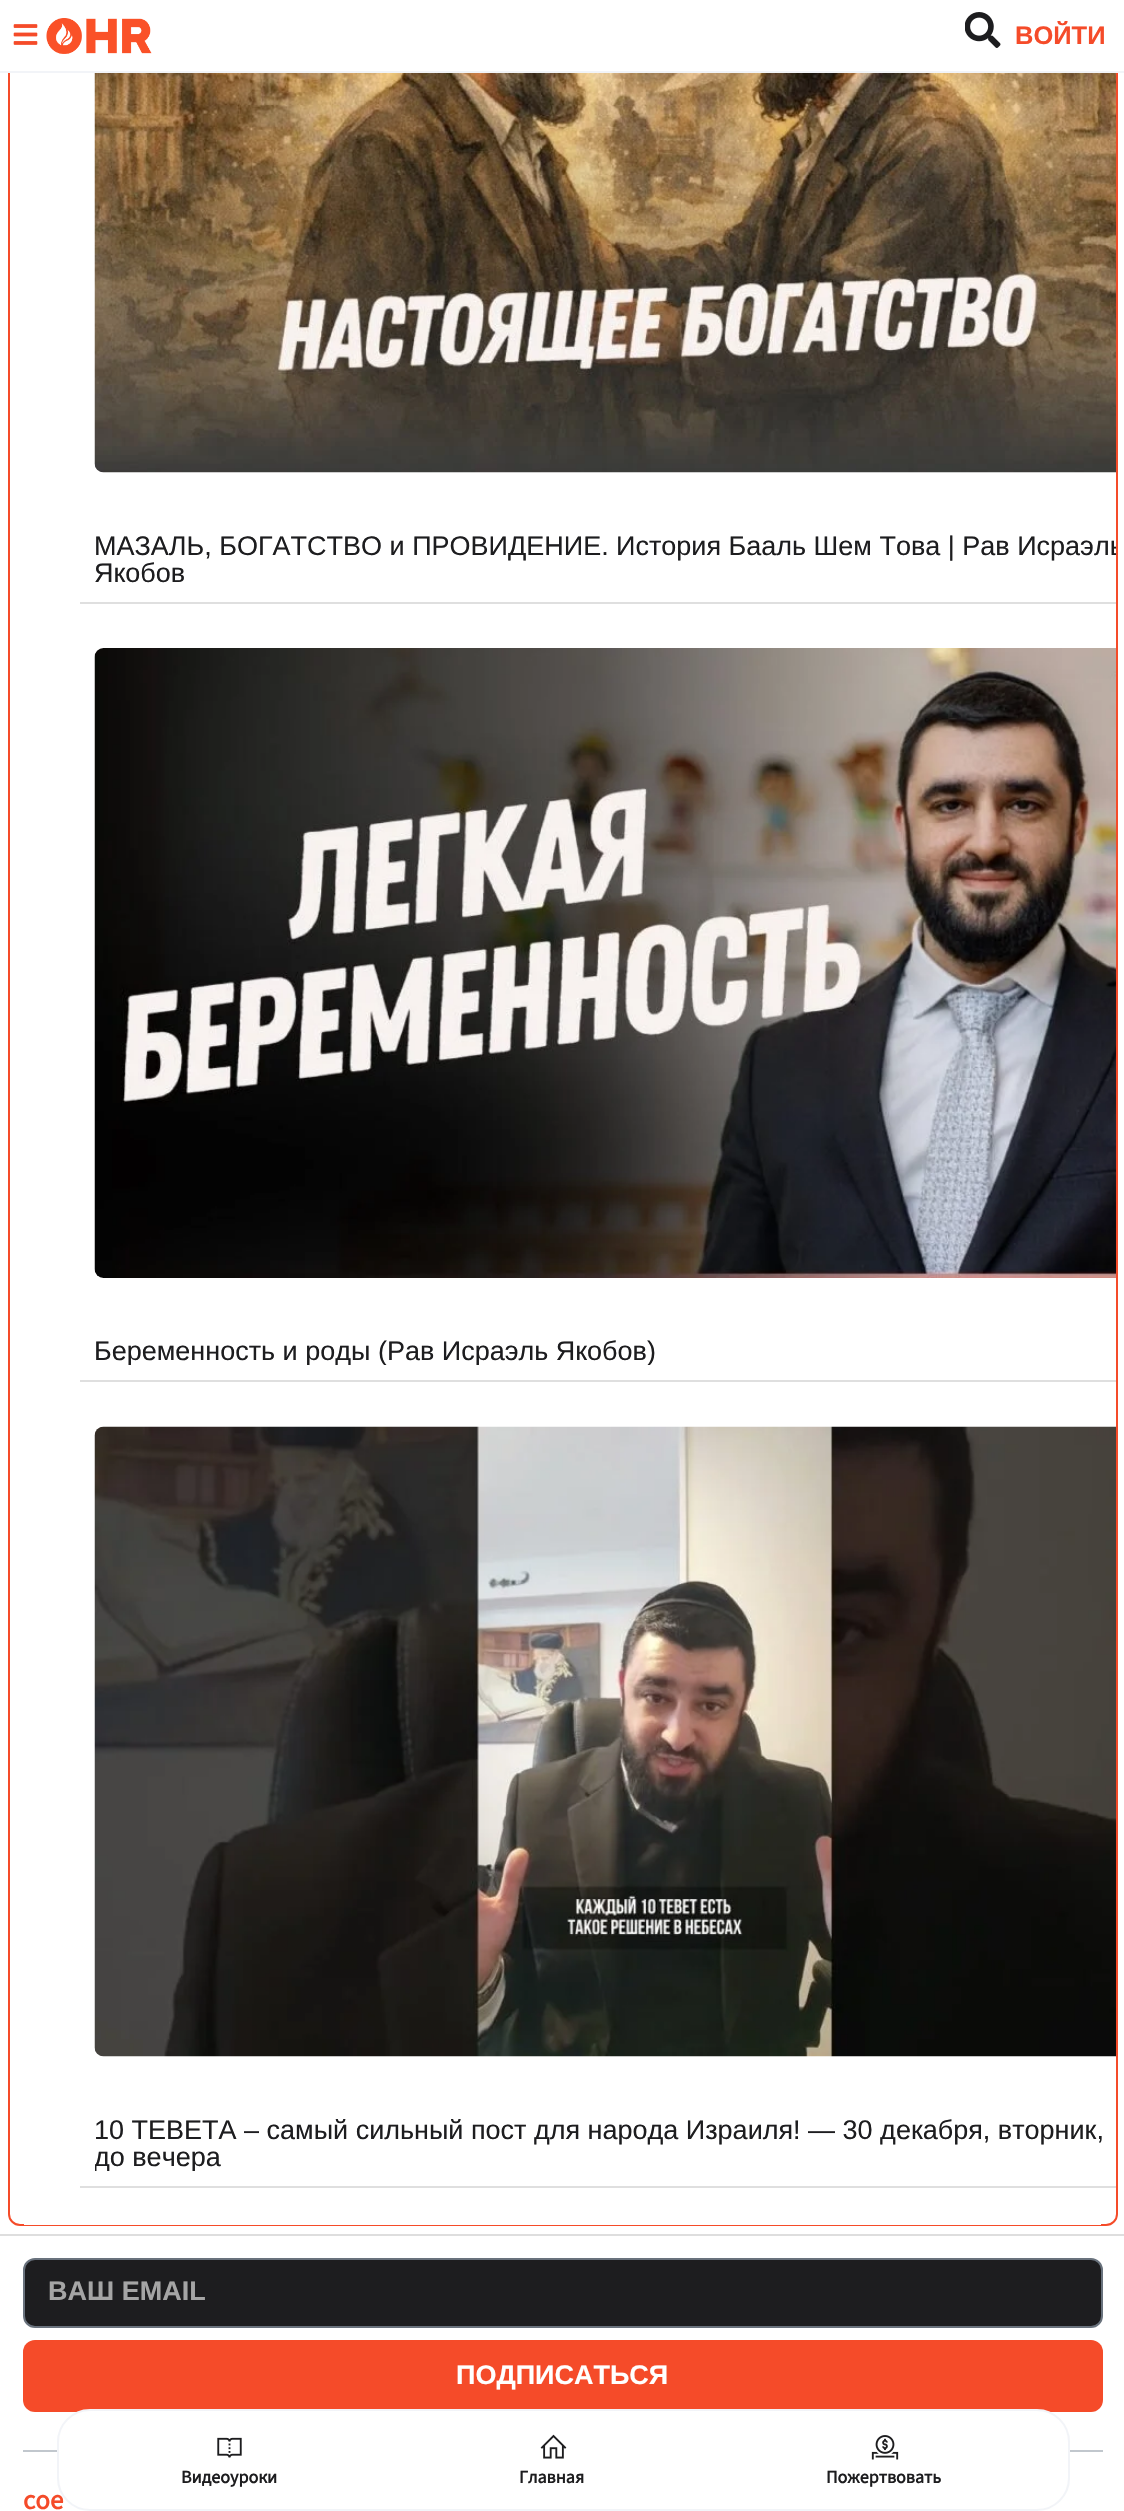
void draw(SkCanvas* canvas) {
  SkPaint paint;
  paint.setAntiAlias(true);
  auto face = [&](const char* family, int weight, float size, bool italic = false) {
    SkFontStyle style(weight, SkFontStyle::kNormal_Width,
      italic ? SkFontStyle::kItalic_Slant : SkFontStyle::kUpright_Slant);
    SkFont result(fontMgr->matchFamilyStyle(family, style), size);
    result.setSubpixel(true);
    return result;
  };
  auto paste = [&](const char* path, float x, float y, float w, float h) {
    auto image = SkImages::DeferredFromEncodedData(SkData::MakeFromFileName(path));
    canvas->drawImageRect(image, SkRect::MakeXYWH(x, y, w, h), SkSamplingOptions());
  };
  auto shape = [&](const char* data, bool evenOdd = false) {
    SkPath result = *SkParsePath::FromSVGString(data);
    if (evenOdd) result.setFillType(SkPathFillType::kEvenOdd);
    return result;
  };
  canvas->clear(0xffffffff);
  paint.setStroke(true);
  paint.setStrokeWidth(2);
  paint.setColor(0xfff54b29);
  canvas->drawRoundRect(SkRect::MakeXYWH(9, -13, 1108, 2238), 11, 11, paint);
  paint.setStroke(false);
  paint.setColor(0xffffffff);
  canvas->drawRect(SkRect::MakeXYWH(8, 0, 1110, 71), paint);
  paint.setColor(0xfff2f4f8);
  canvas->drawRect(SkRect::MakeXYWH(0, 71, 1124, 2), paint);
  paste("img/1.png", 13, 24, 25, 21);
  paste("img/2.png", 46, 18, 106, 36);
  paste("img/3.png", 965, 12, 36, 36);
  paint.setColor(0xffffffff);
  canvas->drawRect(SkRect::MakeXYWH(24, 2224, 1077, 1), paint);
  paint.setColor(0xffdfdfdf);
  canvas->drawRect(SkRect::MakeXYWH(80, 602, 1036, 2), paint);
  paste("img/7.png", 94, 73, 1022, 400);
  canvas->drawRect(SkRect::MakeXYWH(80, 1380, 1036, 2), paint);
  paste("img/8.png", 94, 648, 1022, 630);
  canvas->drawRect(SkRect::MakeXYWH(80, 2186, 1036, 2), paint);
  paste("img/9.png", 94, 1426, 1022, 631);
  paint.setColor(0xffdedede);
  canvas->drawRect(SkRect::MakeXYWH(0, 2234, 1124, 2), paint);
  paint.setColor(0xff1d1d1f);
  canvas->drawRoundRect(SkRect::MakeXYWH(24, 2259, 1078, 68), 11, 11, paint);
  paint.setStroke(true);
  paint.setColor(0xff69727d);
  canvas->drawRoundRect(SkRect::MakeXYWH(24, 2259, 1078, 68), 11, 11, paint);
  paint.setStroke(false);
  paint.setColor(0xfff54b29);
  canvas->drawRoundRect(SkRect::MakeXYWH(23, 2340, 1080, 72), 12, 12, paint);
  paint.setColor(0xffc1c7cd);
  canvas->drawRect(SkRect::MakeXYWH(23, 2450, 1080, 2), paint);
  auto f0 = face("Liberation Sans", 700, 25.5f);
  paint.setColor(0xfff54b29);
  canvas->drawString("ВОЙТИ", 1015, 44, f0, paint);
  auto f1 = face("Liberation Sans", 400, 27);
  paint.setColor(0xff1d1d1f);
  canvas->drawString("МАЗАЛЬ, БОГАТСТВО и ПРОВИДЕНИЕ.", 94, 555, f1, paint);
  canvas->save();
  canvas->clipPath(shape("M20-283H1105C1111-283 1116-278 1116-272V2214C1116 2220 1111 2225 1105 2225H20C14 2225 9 2220 9 2214V-272C9-278 14-283 20-283Z"), true);
  canvas->drawString("История Бааль Шем Това | Рав Исраэль", 616, 555, f1, paint);
  canvas->restore();
  canvas->drawString("Якобов", 94, 582, f1, paint);
  canvas->save();
  canvas->clipRect(SkRect::MakeXYWH(95, 1338, 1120, 27));
  canvas->drawString("Беременность и роды (Рав Исраэль Якобов)", 94, 1360, f1, paint);
  canvas->restore();
  canvas->drawString("10 ТЕВЕТА – самый сильный пост для народа Израиля! — 30 декабря, вторник,", 94, 2139, f1, paint);
  canvas->save();
  canvas->clipRect(SkRect::MakeXYWH(95, 2117, 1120, 54));
  canvas->drawString("до вечера", 94, 2166, f1, paint);
  canvas->restore();
  auto f2 = face("Liberation Sans", 700, 27);
  paint.setColor(0xffa5a5a5);
  canvas->drawString("ВАШ EMAIL", 48, 2300, f2, paint);
  paint.setColor(0xffffffff);
  canvas->drawString("ПОДПИСАТЬСЯ", 456, 2384, f2, paint);
  auto f3 = face("Source Sans 3", 700, 27);
  paint.setColor(0xfff54b29);
  canvas->drawString("сое", 23, 2509, f3, paint);
  paint.setColor(0xffffffff);
  canvas->drawRoundRect(SkRect::MakeXYWH(58, 2410, 1011, 100), 32, 32, paint);
  paint.setStroke(true);
  paint.setColor(0xfff2f4f8);
  canvas->drawRoundRect(SkRect::MakeXYWH(58, 2410, 1011, 100), 32, 32, paint);
  auto f4 = face("Source Sans 3", 700, 18);
  paint.setStroke(false);
  paint.setColor(0xff1d1d1f);
  canvas->drawString("Пожертвовать", 826, 2483, f4, paint);
  paste("img/6.png", 871, 2435, 28, 25);
  canvas->drawString("Главная", 519, 2483, f4, paint);
  paste("img/5.png", 540, 2434, 27, 25);
  canvas->drawString("Видеоуроки", 181, 2483, f4, paint);
  paste("img/4.png", 217, 2437, 25, 21);
}
